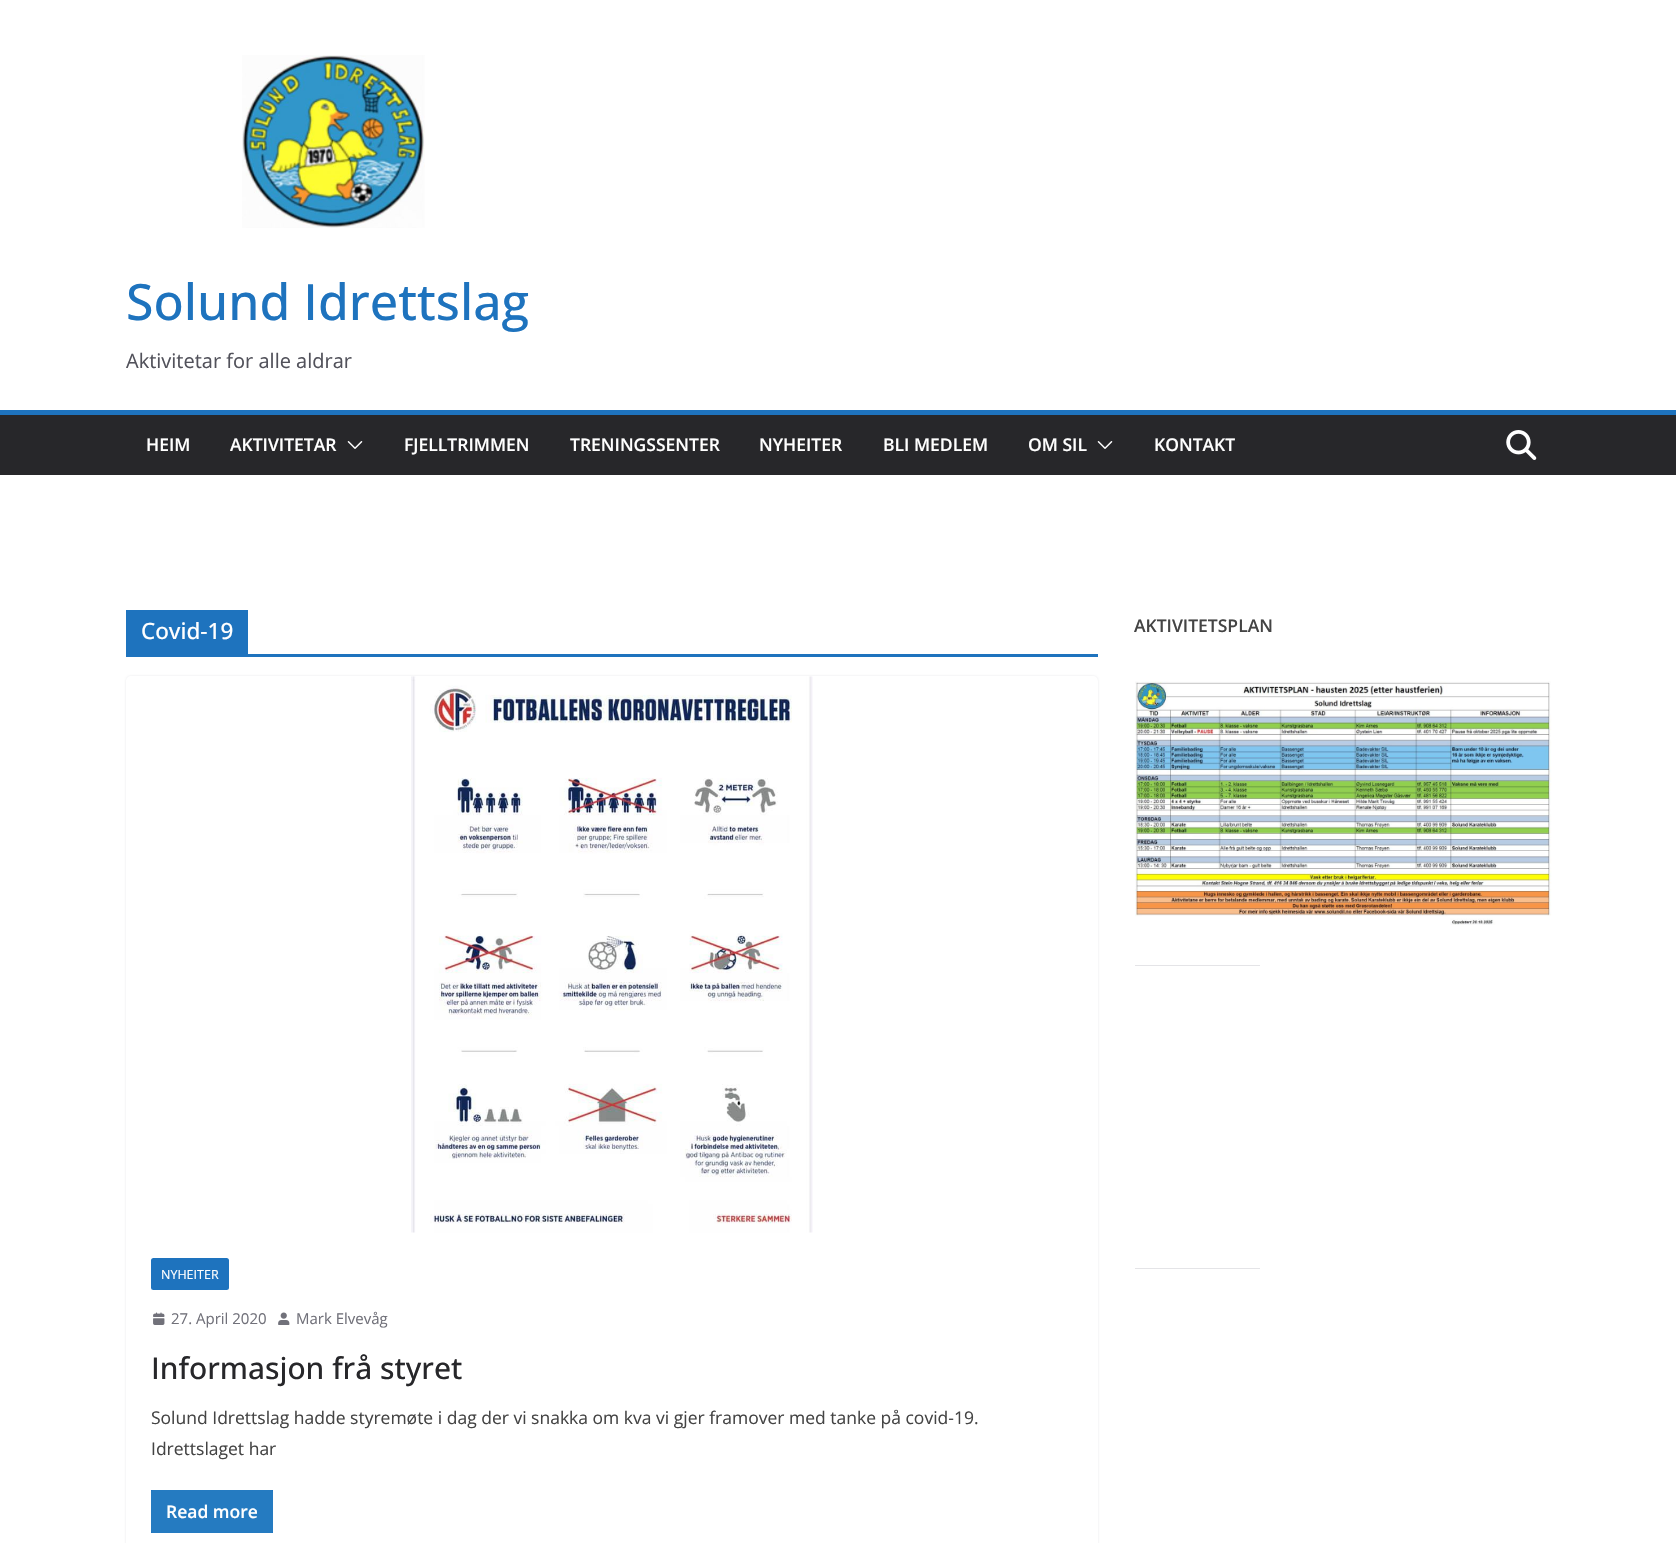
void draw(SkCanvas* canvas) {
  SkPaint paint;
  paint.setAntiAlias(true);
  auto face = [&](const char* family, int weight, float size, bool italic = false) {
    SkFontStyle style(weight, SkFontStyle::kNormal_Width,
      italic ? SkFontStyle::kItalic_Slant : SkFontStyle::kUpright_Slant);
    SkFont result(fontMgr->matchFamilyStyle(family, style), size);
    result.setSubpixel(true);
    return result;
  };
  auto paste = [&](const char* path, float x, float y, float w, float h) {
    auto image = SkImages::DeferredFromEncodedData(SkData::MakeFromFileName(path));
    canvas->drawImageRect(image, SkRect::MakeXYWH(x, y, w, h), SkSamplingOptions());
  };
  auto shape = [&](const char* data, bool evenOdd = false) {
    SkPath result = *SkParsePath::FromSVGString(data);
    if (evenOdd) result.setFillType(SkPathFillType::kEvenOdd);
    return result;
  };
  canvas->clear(0xffffffff);
  paste("img/1.png", 242, 55, 183, 173);
  paint.setColor(0xff27272a);
  canvas->drawRect(SkRect::MakeXYWH(0, 415, 1676, 60), paint);
  paint.setColor(0xff1e73be);
  canvas->drawRect(SkRect::MakeXYWH(0, 410, 1676, 5), paint);
  paste("img/2.png", 347, 441, 16, 8);
  paste("img/2.png", 1097, 441, 16, 8);
  paste("img/3.png", 1506, 430, 31, 30);
  canvas->drawRect(SkRect::MakeXYWH(126, 654, 972, 3), paint);
  canvas->drawRect(SkRect::MakeXYWH(126, 610, 122, 44), paint);
  canvas->save();
  canvas->clipPath(shape("M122 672H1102V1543H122ZM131 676H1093C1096 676 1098 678 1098 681V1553C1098 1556 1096 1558 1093 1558H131C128 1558 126 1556 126 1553V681C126 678 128 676 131 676Z", true), true);
  paint.setColor(0xffe4e4e7);
  paint.setMaskFilter(SkMaskFilter::MakeBlur(kNormal_SkBlurStyle, 1));
  canvas->drawRoundRect(SkRect::MakeXYWH(126, 676, 972, 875), 5, 5, paint);
  paint.setMaskFilter(nullptr);
  canvas->restore();
  paste("img/4.png", 411, 676, 402, 557);
  paint.setColor(0xff1e73be);
  canvas->drawRoundRect(SkRect::MakeXYWH(151, 1258, 78, 32), 2.5f, 2.5f, paint);
  paste("img/5.png", 153, 1312, 12, 13);
  paste("img/6.png", 278, 1312, 12, 13);
  canvas->drawRect(SkRect::MakeXYWH(151, 1490, 122, 43), paint);
  paint.setColor(0xff257bc1);
  canvas->drawRoundRect(SkRect::MakeXYWH(151, 1490, 122, 43), 2.5f, 2.5f, paint);
  paste("img/7.png", 1135, 681, 417, 244);
  paint.setColor(0xffe4e4e7);
  canvas->drawRect(SkRect::MakeXYWH(1135, 965, 125, 1), paint);
  canvas->drawRect(SkRect::MakeXYWH(1135, 1268, 125, 1), paint);
  auto f0 = face("Open Sans", 500, 50);
  paint.setColor(0xff1e73be);
  canvas->drawString("Solund Idrettslag", 126, 320, f0, paint);
  auto f1 = face("Open Sans", 400, 20);
  paint.setColor(0xff52525b);
  canvas->drawString("Aktivitetar for alle aldrar", 126, 368, f1, paint);
  auto f2 = face("Open Sans", 600, 17.5f);
  paint.setColor(0xffffffff);
  {
    const struct { const char* s; float x, y; } items[] = {
      {"HEIM", 146, 451},
      {"AKTIVITETAR", 230, 451},
      {"FJELLTRIMMEN", 404, 451},
      {"TRENINGSSENTER", 570, 451},
      {"NYHEITER", 759, 451},
      {"BLI MEDLEM", 883, 451},
      {"OM SIL", 1028, 451},
      {"KONTAKT", 1154, 451},
    };
    for (auto [s, x, y] : items) {
      canvas->drawString(s, x, y, f2, paint);
    }
  }
  auto f3 = face("Open Sans", 500, 22.5f);
  canvas->drawString("Covid-19", 141, 639, f3, paint);
  auto f4 = face("Open Sans", 400, 12.5f);
  canvas->drawString("NYHEITER", 161, 1279, f4, paint);
  auto f5 = face("Open Sans", 400, 15);
  paint.setColor(0xff71717a);
  canvas->drawString("27. April 2020", 171, 1324, f5, paint);
  canvas->drawString("Mark Elvevåg", 296, 1324, f5, paint);
  auto f6 = face("Open Sans", 500, 30);
  paint.setColor(0xff27272a);
  canvas->drawString("Informasjon frå styret", 151, 1379, f6, paint);
  auto f7 = face("Open Sans", 400, 17.5f);
  paint.setColor(0xff444444);
  canvas->drawString("Solund Idrettslag hadde styremøte i dag der vi snakka om kva vi gjer framover med tanke på covid-19.", 151, 1424, f7, paint);
  canvas->drawString("Idrettslaget har", 151, 1455, f7, paint);
  paint.setColor(0xffffffff);
  canvas->drawString("Read more", 166, 1518, f2, paint);
  paint.setColor(0xff444444);
  canvas->drawString("AKTIVITETSPLAN", 1134, 632, f2, paint);
}
